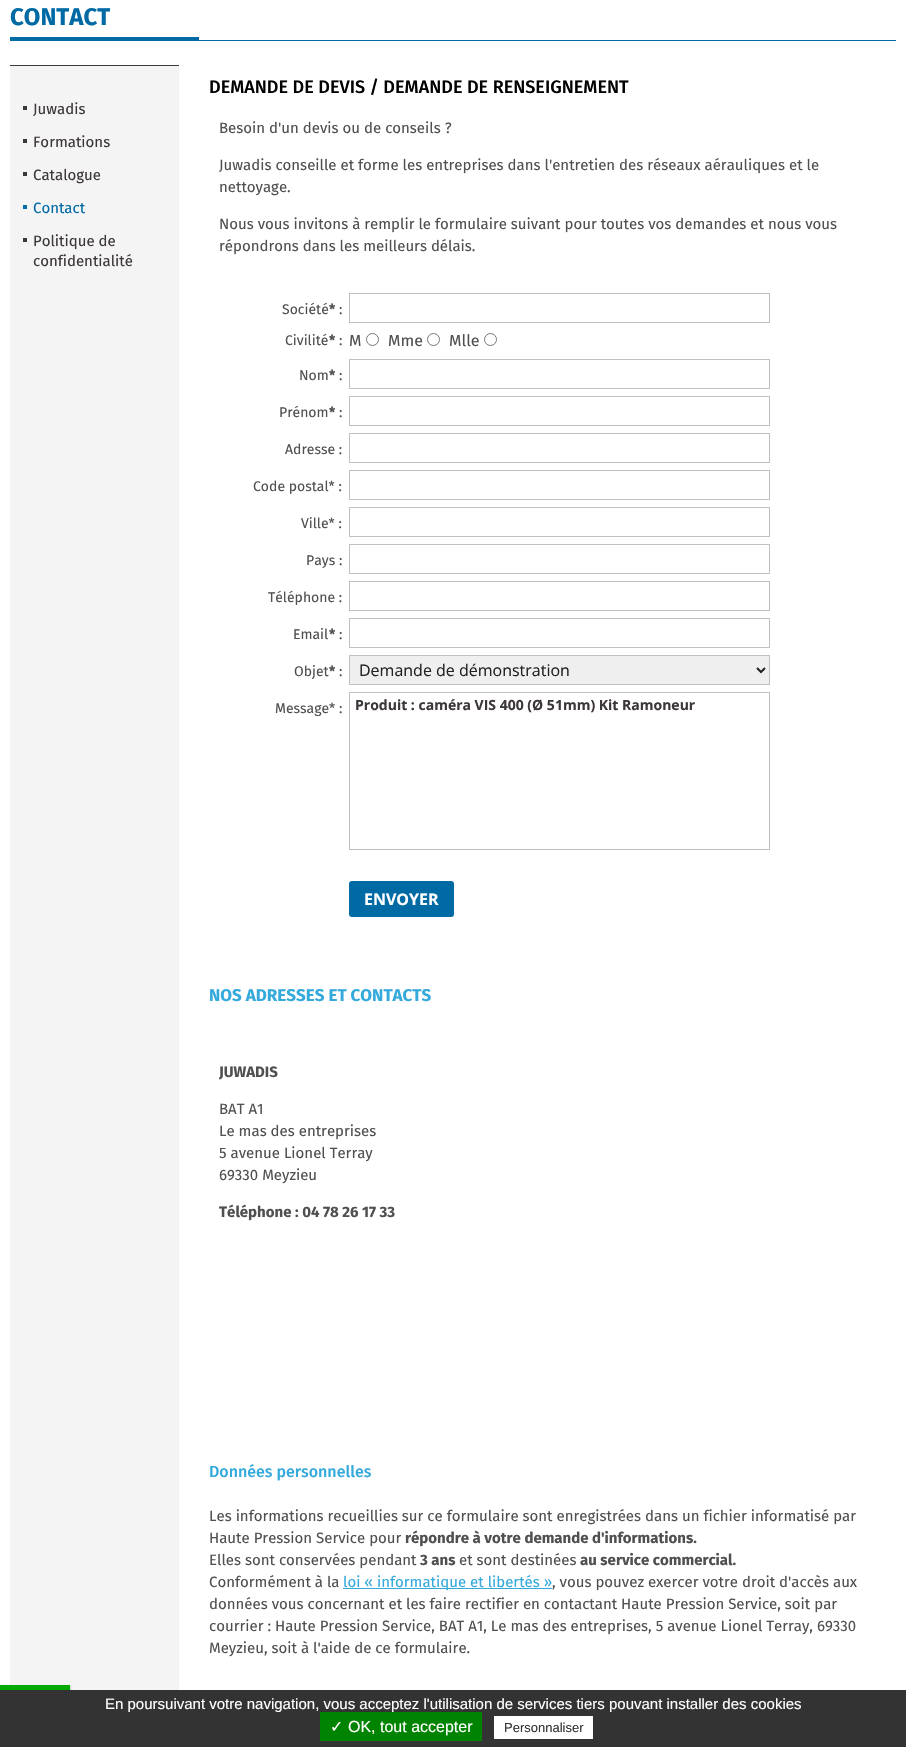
void draw(SkCanvas* canvas) {
  SkPaint paint;
  paint.setAntiAlias(true);
  auto face = [&](const char* family, int weight, float size, bool italic = false) {
    SkFontStyle style(weight, SkFontStyle::kNormal_Width,
      italic ? SkFontStyle::kItalic_Slant : SkFontStyle::kUpright_Slant);
    SkFont result(fontMgr->matchFamilyStyle(family, style), size);
    result.setSubpixel(true);
    return result;
  };
  auto shape = [&](const char* data, bool evenOdd = false) {
    SkPath result = *SkParsePath::FromSVGString(data);
    if (evenOdd) result.setFillType(SkPathFillType::kEvenOdd);
    return result;
  };
  canvas->clear(0xffffffff);
  {
    const struct { float x, y, w, h; SkColor color; } items[] = {
      {10, 40, 886, 1, 0xff006aa4},
      {10, 37, 189, 3, 0xff006aa4},
      {10, 66, 169, 1624, 0xfff4f4f4},
      {10, 65, 169, 1, 0xff3d3737},
      {23, 106, 4, 4, 0xff3d3737},
      {23, 139, 4, 4, 0xff3d3737},
      {23, 172, 4, 4, 0xff3d3737},
      {23, 205, 4, 4, 0xff006aa4},
      {23, 238, 4, 4, 0xff3d3737},
    };
    for (auto [x, y, w, h, color] : items) {
      paint.setColor(color);
      canvas->drawRect(SkRect::MakeXYWH(x, y, w, h), paint);
    }
  }
  paint.setStroke(true);
  paint.setStrokeWidth(1);
  paint.setColor(0xffc1bfc4);
  canvas->drawRect(SkRect::MakeXYWH(349.5f, 293.5f, 420, 29), paint);
  paint.setColor(0xff767676);
  canvas->drawCircle(372.5f, 339.5f, 6, paint);
  canvas->drawCircle(433.5f, 339.5f, 6, paint);
  canvas->drawCircle(490.5f, 339.5f, 6, paint);
  paint.setColor(0xffc1bfc4);
  canvas->drawRect(SkRect::MakeXYWH(349.5f, 359.5f, 420, 29), paint);
  canvas->drawRect(SkRect::MakeXYWH(349.5f, 396.5f, 420, 29), paint);
  canvas->drawRect(SkRect::MakeXYWH(349.5f, 433.5f, 420, 29), paint);
  canvas->drawRect(SkRect::MakeXYWH(349.5f, 470.5f, 420, 29), paint);
  canvas->drawRect(SkRect::MakeXYWH(349.5f, 507.5f, 420, 29), paint);
  canvas->drawRect(SkRect::MakeXYWH(349.5f, 544.5f, 420, 29), paint);
  canvas->drawRect(SkRect::MakeXYWH(349.5f, 581.5f, 420, 29), paint);
  canvas->drawRect(SkRect::MakeXYWH(349.5f, 618.5f, 420, 29), paint);
  paint.setStroke(false);
  paint.setColor(0xffefefef);
  canvas->drawRect(SkRect::MakeXYWH(349.5f, 655.5f, 420, 29), paint);
  paint.setStroke(true);
  paint.setColor(0xffc1bfc4);
  canvas->drawRect(SkRect::MakeXYWH(349.5f, 655.5f, 420, 29), paint);
  paint.setStrokeWidth(2);
  paint.setColor(0xff222222);
  canvas->drawPath(shape("M757 668L761 672L765 668"), paint);
  paint.setStrokeWidth(1);
  paint.setColor(0xffc1bfc4);
  canvas->drawRect(SkRect::MakeXYWH(349.5f, 692.5f, 420, 157), paint);
  paint.setStroke(false);
  paint.setColor(0xff006aa4);
  canvas->drawRoundRect(SkRect::MakeXYWH(349, 881, 105, 36), 3, 3, paint);
  paint.setColor(0xff33a9dc);
  canvas->drawRect(SkRect::MakeXYWH(343, 1588, 209, 1), paint);
  paint.setColor(0xff555555);
  paint.setMaskFilter(SkMaskFilter::MakeBlur(kNormal_SkBlurStyle, 1));
  canvas->drawRect(SkRect::MakeXYWH(0, 1686, 70, 5), paint);
  paint.setMaskFilter(nullptr);
  paint.setColor(0xffffffff);
  paint.setMaskFilter(SkMaskFilter::MakeBlur(kNormal_SkBlurStyle, 1));
  canvas->drawRect(SkRect::MakeXYWH(0, 1685, 70, 5), paint);
  paint.setMaskFilter(nullptr);
  {
    const struct { float x, y, w, h; SkColor color; } items[] = {
      {0, 1685, 70, 5, 0xff00aa00},
      {0, 1690, 906, 57, 0xff333333},
      {494, 1716, 99, 23, 0xffffffff},
    };
    for (auto [x, y, w, h, color] : items) {
      paint.setColor(color);
      canvas->drawRect(SkRect::MakeXYWH(x, y, w, h), paint);
    }
  }
  auto f0 = face("Fira Sans", 700, 24);
  paint.setColor(0xff006aa4);
  canvas->drawString("CONTACT", 10, 25, f0, paint);
  auto f1 = face("Fira Sans", 400, 15);
  paint.setColor(0xff3d3737);
  {
    const struct { const char* s; float x, y; } items[] = {
      {"Juwadis", 33, 114},
      {"Formations", 33, 147},
      {"Catalogue", 33, 180},
    };
    for (auto [s, x, y] : items) {
      canvas->drawString(s, x, y, f1, paint);
    }
  }
  paint.setColor(0xff006aa4);
  canvas->drawString("Contact", 33, 213, f1, paint);
  paint.setColor(0xff3d3737);
  canvas->drawString("Politique de", 33, 246, f1, paint);
  canvas->drawString("confidentialité", 33, 266, f1, paint);
  auto f2 = face("Fira Sans", 500, 18);
  paint.setColor(0xff000000);
  canvas->drawString("DEMANDE DE DEVIS / DEMANDE DE RENSEIGNEMENT", 209, 93, f2, paint);
  paint.setColor(0xff505050);
  {
    const struct { const char* s; float x, y; } items[] = {
      {"Besoin d'un devis ou de conseils ?", 219, 133},
      {"Juwadis conseille et forme les entreprises dans l'entretien des réseaux aérauliques et le", 219, 170},
      {"nettoyage.", 219, 192},
      {"Nous vous invitons à remplir le formulaire suivant pour toutes vos demandes et nous vous", 219, 229},
      {"répondrons dans les meilleurs délais.", 219, 251},
    };
    for (auto [s, x, y] : items) {
      canvas->drawString(s, x, y, f1, paint);
    }
  }
  auto f3 = face("Fira Sans", 400, 14);
  canvas->drawString("Société", 282, 314, f3, paint);
  auto f4 = face("Fira Sans", 700, 14);
  canvas->drawString("*", 329, 314, f4, paint);
  canvas->drawString(":", 339, 314, f3, paint);
  canvas->drawString("Civilité", 285, 345, f3, paint);
  canvas->drawString("*", 329, 345, f4, paint);
  canvas->drawString(":", 339, 345, f3, paint);
  auto f5 = face("Fira Sans", 400, 16);
  {
    const struct { const char* s; float x, y; } items[] = {
      {"M", 349, 346},
      {"Mme", 388, 346},
      {"Mlle", 449, 346},
    };
    for (auto [s, x, y] : items) {
      canvas->drawString(s, x, y, f5, paint);
    }
  }
  canvas->drawString("Nom", 299, 380, f3, paint);
  canvas->drawString("*", 329, 380, f4, paint);
  canvas->drawString(":", 339, 380, f3, paint);
  canvas->drawString("Prénom", 279, 417, f3, paint);
  canvas->drawString("*", 329, 417, f4, paint);
  {
    const struct { const char* s; float x, y; } items[] = {
      {":", 339, 417},
      {"Adresse :", 285, 454},
      {"Code postal* :", 253, 491},
      {"Ville* :", 301, 528},
      {"Pays :", 306, 565},
      {"Téléphone :", 268, 602},
      {"Email", 293, 639},
    };
    for (auto [s, x, y] : items) {
      canvas->drawString(s, x, y, f3, paint);
    }
  }
  canvas->drawString("*", 329, 639, f4, paint);
  canvas->drawString(":", 339, 639, f3, paint);
  canvas->drawString("Objet", 294, 676, f3, paint);
  canvas->drawString("*", 329, 676, f4, paint);
  canvas->drawString(":", 339, 676, f3, paint);
  auto f6 = face("Open Sans", 400, 16);
  paint.setColor(0xff222222);
  canvas->drawString("Demande de démonstration", 359, 676, f6, paint);
  paint.setColor(0xff505050);
  canvas->drawString("Message* :", 275, 713, f3, paint);
  auto f7 = face("Open Sans", 700, 14);
  paint.setColor(0xff3d3737);
  canvas->drawString("Produit : caméra VIS 400 (Ø 51mm) Kit Ramoneur", 355, 710, f7, paint);
  auto f8 = face("Open Sans", 700, 16);
  paint.setColor(0xffffffff);
  canvas->drawString("ENVOYER", 364, 905, f8, paint);
  auto f9 = face("Fira Sans", 700, 17);
  paint.setColor(0xff33a9dc);
  canvas->drawString("NOS ADRESSES ET CONTACTS", 209, 1001, f9, paint);
  auto f10 = face("Fira Sans", 700, 15);
  paint.setColor(0xff505050);
  canvas->drawString("JUWADIS", 219, 1077, f10, paint);
  {
    const struct { const char* s; float x, y; } items[] = {
      {"BAT A1", 219, 1114},
      {"Le mas des entreprises", 219, 1136},
      {"5 avenue Lionel Terray", 219, 1158},
      {"69330 Meyzieu", 219, 1180},
    };
    for (auto [s, x, y] : items) {
      canvas->drawString(s, x, y, f1, paint);
    }
  }
  canvas->drawString("Téléphone : 04 78 26 17 33", 219, 1217, f10, paint);
  auto f11 = face("Fira Sans", 500, 16);
  paint.setColor(0xff33a9dc);
  canvas->drawString("Données personnelles", 209, 1477, f11, paint);
  paint.setColor(0xff505050);
  canvas->drawString("Les informations recueillies sur ce formulaire sont enregistrées dans un fichier informatisé par", 209, 1521, f1, paint);
  canvas->drawString("Haute Pression Service pour", 209, 1543, f1, paint);
  canvas->drawString("répondre à votre demande d'informations.", 405, 1543, f10, paint);
  canvas->drawString("Elles sont conservées pendant", 209, 1565, f1, paint);
  canvas->drawString("3 ans", 420, 1565, f10, paint);
  canvas->drawString("et sont destinées", 459, 1565, f1, paint);
  canvas->drawString("au service commercial.", 580, 1565, f10, paint);
  canvas->drawString("Conformément à la", 209, 1587, f1, paint);
  paint.setColor(0xff33a9dc);
  canvas->drawString("loi « informatique et libertés »", 343, 1587, f1, paint);
  paint.setColor(0xff505050);
  {
    const struct { const char* s; float x, y; } items[] = {
      {", vous pouvez exercer votre droit d'accès aux", 552, 1587},
      {"données vous concernant et les faire rectifier en contactant Haute Pression Service, soit par", 209, 1609},
      {"courrier : Haute Pression Service, BAT A1, Le mas des entreprises, 5 avenue Lionel Terray, 69330", 209, 1631},
      {"Meyzieu, soit à l'aide de ce formulaire.", 209, 1653},
    };
    for (auto [s, x, y] : items) {
      canvas->drawString(s, x, y, f1, paint);
    }
  }
  auto f12 = face("Liberation Sans", 400, 15);
  paint.setColor(0xffffffff);
  canvas->drawString("En poursuivant votre navigation, vous acceptez l'utilisation de services tiers pouvant installer des cookies", 105, 1709, f12, paint);
  paint.setColor(0xff008300);
  canvas->drawRect(SkRect::MakeXYWH(320, 1712, 162, 29), paint);
  auto f13 = face("DejaVu Sans", 400, 16);
  paint.setColor(0xffffffff);
  canvas->drawString("✓", 330, 1732, f13, paint);
  auto f14 = face("Liberation Sans", 400, 16);
  canvas->drawString("OK, tout accepter", 348, 1732, f14, paint);
  auto f15 = face("Liberation Sans", 400, 13);
  paint.setColor(0xff333333);
  canvas->drawString("Personnaliser", 504, 1732, f15, paint);
}
